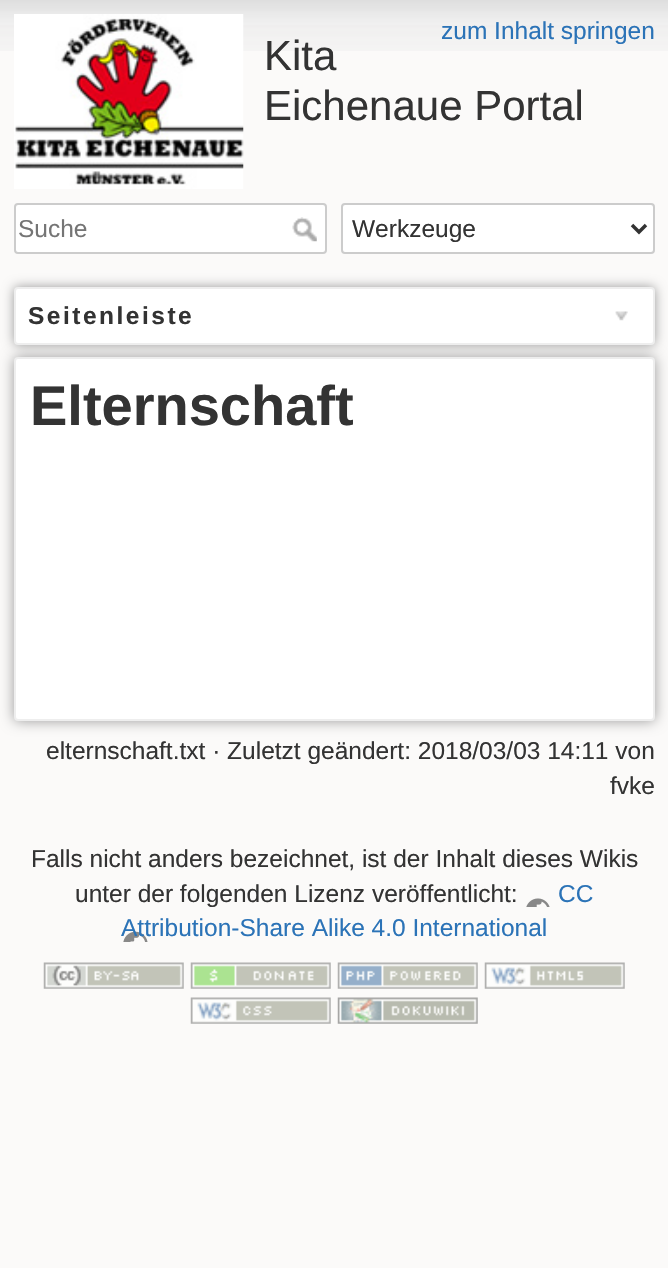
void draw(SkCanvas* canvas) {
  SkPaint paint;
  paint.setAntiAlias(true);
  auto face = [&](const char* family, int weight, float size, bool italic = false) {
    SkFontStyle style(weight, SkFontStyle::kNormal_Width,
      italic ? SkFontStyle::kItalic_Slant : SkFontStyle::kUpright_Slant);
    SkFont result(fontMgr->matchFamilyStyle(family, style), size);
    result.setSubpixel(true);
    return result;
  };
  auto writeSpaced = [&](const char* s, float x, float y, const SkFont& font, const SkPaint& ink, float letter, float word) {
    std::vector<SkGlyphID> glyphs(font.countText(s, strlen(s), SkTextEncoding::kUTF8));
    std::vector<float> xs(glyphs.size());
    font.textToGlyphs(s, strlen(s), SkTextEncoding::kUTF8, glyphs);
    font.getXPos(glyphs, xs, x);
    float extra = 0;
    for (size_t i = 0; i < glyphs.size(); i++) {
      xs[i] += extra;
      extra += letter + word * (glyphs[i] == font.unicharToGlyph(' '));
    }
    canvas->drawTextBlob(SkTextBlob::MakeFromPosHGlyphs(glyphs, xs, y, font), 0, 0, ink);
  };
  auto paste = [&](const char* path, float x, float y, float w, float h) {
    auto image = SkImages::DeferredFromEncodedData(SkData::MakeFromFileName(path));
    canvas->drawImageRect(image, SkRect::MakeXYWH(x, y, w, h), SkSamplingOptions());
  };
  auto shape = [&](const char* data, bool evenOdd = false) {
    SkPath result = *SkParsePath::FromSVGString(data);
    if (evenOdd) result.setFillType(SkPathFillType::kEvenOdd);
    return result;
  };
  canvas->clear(0xfffbfaf9);
  paste("img/1.png", 0, 0, 668, 51);
  paste("img/2.png", 14, 14, 230, 175);
  paint.setColor(0xffffffff);
  canvas->drawRoundRect(SkRect::MakeXYWH(15, 204, 311, 49), 3, 3, paint);
  paint.setStroke(true);
  paint.setStrokeWidth(2);
  paint.setColor(0xffcccccc);
  canvas->drawRoundRect(SkRect::MakeXYWH(15, 204, 311, 49), 3, 3, paint);
  paste("img/3.png", 292, 217, 25, 25);
  paint.setStroke(false);
  paint.setColor(0xffffffff);
  canvas->drawRoundRect(SkRect::MakeXYWH(342, 204, 312, 49), 3, 3, paint);
  paint.setStroke(true);
  paint.setColor(0xffcccccc);
  canvas->drawRoundRect(SkRect::MakeXYWH(342, 204, 312, 49), 3, 3, paint);
  paint.setStrokeWidth(3.5f);
  paint.setColor(0xff333333);
  canvas->drawPath(shape("M632 225L639 232L646 225"), paint);
  paint.setStroke(false);
  paint.setColor(0xff999999);
  paint.setMaskFilter(SkMaskFilter::MakeBlur(kNormal_SkBlurStyle, 7));
  canvas->drawRoundRect(SkRect::MakeXYWH(14, 357, 641, 364), 4, 4, paint);
  paint.setMaskFilter(nullptr);
  paint.setColor(0xffffffff);
  canvas->drawRoundRect(SkRect::MakeXYWH(15, 358, 639, 362), 3, 3, paint);
  paint.setStroke(true);
  paint.setStrokeWidth(2);
  paint.setColor(0xffeeeeee);
  canvas->drawRoundRect(SkRect::MakeXYWH(15, 358, 639, 362), 3, 3, paint);
  paint.setStroke(false);
  paint.setColor(0xff999999);
  paint.setMaskFilter(SkMaskFilter::MakeBlur(kNormal_SkBlurStyle, 6));
  canvas->drawRoundRect(SkRect::MakeXYWH(14, 287, 641, 58), 4, 4, paint);
  paint.setMaskFilter(nullptr);
  paint.setColor(0xffffffff);
  canvas->drawRoundRect(SkRect::MakeXYWH(15, 288, 639, 56), 3, 3, paint);
  paint.setStroke(true);
  paint.setColor(0xffeeeeee);
  canvas->drawRoundRect(SkRect::MakeXYWH(15, 288, 639, 56), 3, 3, paint);
  paste("img/4.png", 615, 311, 13, 10);
  paste("img/6.png", 43, 962, 141, 27);
  paste("img/7.png", 190, 962, 141, 27);
  paste("img/8.png", 337, 962, 141, 27);
  paste("img/9.png", 484, 962, 141, 27);
  paste("img/10.png", 190, 997, 141, 27);
  paste("img/11.png", 337, 997, 141, 27);
  auto f0 = face("Liberation Sans", 400, 24.5f);
  paint.setStroke(false);
  paint.setColor(0xff2b73b7);
  canvas->drawString("zum Inhalt springen", 441, 39, f0, paint);
  auto f1 = face("Liberation Sans", 400, 42);
  paint.setColor(0xff333333);
  canvas->drawString("Kita", 264, 70, f1, paint);
  canvas->drawString("Eichenaue Portal", 264, 120, f1, paint);
  paint.setColor(0xff757575);
  canvas->drawString("Suche", 18, 237, f0, paint);
  paint.setColor(0xff333333);
  canvas->drawString("Werkzeuge", 352, 237, f0, paint);
  auto f2 = face("Liberation Sans", 700, 24.5f);
  writeSpaced("Seitenleiste", 28, 324, f2, paint, 2.5f, 0);
  auto f3 = face("Liberation Sans", 700, 56);
  canvas->drawString("Elternschaft", 30, 425, f3, paint);
  {
    const struct { const char* s; float x, y; } items[] = {
      {"elternschaft.txt · Zuletzt geändert: 2018/03/03 14:11 von", 46, 759},
      {"fvke", 610, 794},
      {"Falls nicht anders bezeichnet, ist der Inhalt dieses Wikis", 31, 867},
      {"unter der folgenden Lizenz veröffentlicht:", 75, 902},
    };
    for (auto [s, x, y] : items) {
      canvas->drawString(s, x, y, f0, paint);
    }
  }
  paint.setColor(0xff2b73b7);
  canvas->drawString("CC", 558, 902, f0, paint);
  paste("img/5.png", 123, 898, 427, 44);
  canvas->drawString("Attribution-Share Alike 4.0 International", 121, 936, f0, paint);
}
